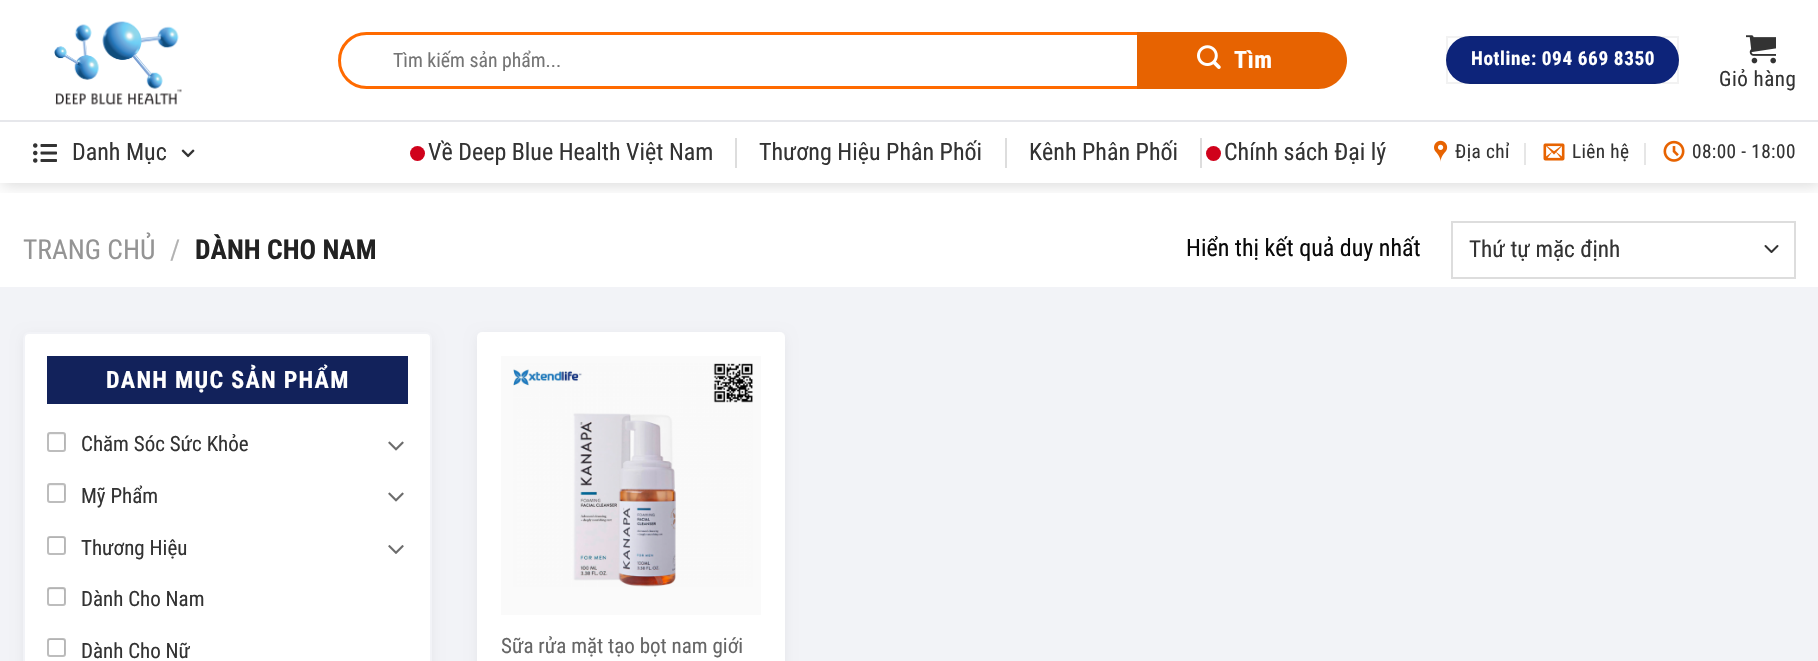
void draw(SkCanvas* canvas) {
  SkPaint paint;
  paint.setAntiAlias(true);
  auto face = [&](const char* family, int weight, float size, bool italic = false) {
    SkFontStyle style(weight, SkFontStyle::kNormal_Width,
      italic ? SkFontStyle::kItalic_Slant : SkFontStyle::kUpright_Slant);
    SkFont result(fontMgr->matchFamilyStyle(family, style), size);
    result.setSubpixel(true);
    return result;
  };
  auto writeSpaced = [&](const char* s, float x, float y, const SkFont& font, const SkPaint& ink, float letter, float word) {
    std::vector<SkGlyphID> glyphs(font.countText(s, strlen(s), SkTextEncoding::kUTF8));
    std::vector<float> xs(glyphs.size());
    font.textToGlyphs(s, strlen(s), SkTextEncoding::kUTF8, glyphs);
    font.getXPos(glyphs, xs, x);
    float extra = 0;
    for (size_t i = 0; i < glyphs.size(); i++) {
      xs[i] += extra;
      extra += letter + word * (glyphs[i] == font.unicharToGlyph(' '));
    }
    canvas->drawTextBlob(SkTextBlob::MakeFromPosHGlyphs(glyphs, xs, y, font), 0, 0, ink);
  };
  auto paste = [&](const char* path, float x, float y, float w, float h) {
    auto image = SkImages::DeferredFromEncodedData(SkData::MakeFromFileName(path));
    canvas->drawImageRect(image, SkRect::MakeXYWH(x, y, w, h), SkSamplingOptions());
  };
  auto shape = [&](const char* data, bool evenOdd = false) {
    SkPath result = *SkParsePath::FromSVGString(data);
    if (evenOdd) result.setFillType(SkPathFillType::kEvenOdd);
    return result;
  };
  canvas->clear(0xffffffff);
  canvas->save();
  canvas->clipRect(SkRect::MakeXYWH(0, 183, 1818, 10));
  paint.setColor(0x26000000);
  paint.setMaskFilter(SkMaskFilter::MakeBlur(kNormal_SkBlurStyle, 7.5f));
  canvas->drawRect(SkRect::MakeXYWH(2, 2, 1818, 183), paint);
  paint.setMaskFilter(nullptr);
  canvas->restore();
  paste("img/1.png", 54, 21, 128, 84);
  paint.setStroke(true);
  paint.setStrokeWidth(3);
  paint.setColor(0xffff6a00);
  canvas->drawRoundRect(SkRect::MakeXYWH(339.5f, 33.5f, 994, 54), 27, 27, paint);
  paint.setStroke(false);
  paint.setColor(0xffffffff);
  canvas->drawRect(SkRect::MakeXYWH(1307, 35, 25, 51), paint);
  paint.setColor(0xffe76301);
  canvas->drawPath(shape("M1137 32H1318.5C1334 32 1347 45 1347 60.5C1347 76 1334 89 1318.5 89H1137Z"), paint);
  paste("img/2.png", 1197, 45, 24, 24);
  paint.setColor(0xff0d247a);
  canvas->drawRoundRect(SkRect::MakeXYWH(1446, 36, 233, 48), 24, 24, paint);
  paint.setStroke(true);
  paint.setStrokeWidth(2);
  paint.setColor(0x0d000000);
  canvas->drawRect(SkRect::MakeXYWH(1447, 37, 231, 46), paint);
  paste("img/3.png", 1746, 35, 30, 29);
  paint.setStroke(false);
  paint.setColor(0xffe6e7eb);
  canvas->drawRect(SkRect::MakeXYWH(0, 120, 1818, 2), paint);
  paste("img/4.png", 33, 143, 24, 20);
  paste("img/5.png", 181, 149, 14, 9);
  paint.setColor(0xffd0021b);
  canvas->drawCircle(417.5f, 153.5f, 7.5f, paint);
  {
    const struct { float x, y, w, h; SkColor color; } items[] = {
      {735, 138, 2, 30, 0xffdddddd},
      {1005, 138, 2, 30, 0xffdddddd},
      {1200, 138, 2, 30, 0xffdddddd},
    };
    for (auto [x, y, w, h, color] : items) {
      paint.setColor(color);
      canvas->drawRect(SkRect::MakeXYWH(x, y, w, h), paint);
    }
  }
  paint.setColor(0xffd0021b);
  canvas->drawCircle(1213.5f, 153.5f, 7.5f, paint);
  paste("img/6.png", 1434, 140, 14, 22);
  paint.setColor(0xffe6e6e6);
  canvas->drawRect(SkRect::MakeXYWH(1524, 143, 2, 22), paint);
  paste("img/7.png", 1543, 143, 22, 18);
  canvas->drawRect(SkRect::MakeXYWH(1644, 143, 2, 22), paint);
  paste("img/8.png", 1663, 140, 22, 22);
  paint.setStroke(true);
  paint.setStrokeCap(SkPaint::kRound_Cap);
  paint.setStrokeJoin(SkPaint::kRound_Join);
  paint.setColor(0xff333333);
  canvas->drawPath(shape("M1765.5 246L1771.5 252L1777.5 246"), paint);
  paint.setStrokeCap(SkPaint::kButt_Cap);
  paint.setStrokeJoin(SkPaint::kMiter_Join);
  paint.setColor(0xffdddddd);
  canvas->drawRect(SkRect::MakeXYWH(1452, 222, 343, 56), paint);
  paint.setStroke(false);
  paint.setColor(0xfff2f3f7);
  canvas->drawRect(SkRect::MakeXYWH(0, 287, 1818, 374), paint);
  paint.setColor(0x0d000000);
  paint.setMaskFilter(SkMaskFilter::MakeBlur(kNormal_SkBlurStyle, 6));
  canvas->drawRoundRect(SkRect::MakeXYWH(23, 335, 409, 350), 6, 6, paint);
  paint.setMaskFilter(nullptr);
  paint.setColor(0xffffffff);
  canvas->drawRoundRect(SkRect::MakeXYWH(24, 333, 407, 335), 5, 5, paint);
  paint.setStroke(true);
  paint.setColor(0xfff2f3f7);
  canvas->drawRoundRect(SkRect::MakeXYWH(24, 333, 407, 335), 5, 5, paint);
  paint.setStroke(false);
  paint.setColor(0xff12225b);
  canvas->drawRect(SkRect::MakeXYWH(47, 356, 361, 48), paint);
  paint.setColor(0xfff2f2f2);
  canvas->drawPath(shape("M50 435C53 435 61 434.5 63.5 435.5C64 435.5 64.5 436 64.5 436.5L64 442.5L64.5 449.5C65.5 448 65 443.5 65 442C65 432.5 66.5 434 56.5 434H52C48 434 48 434 48 437.5C48 436 49 435 50 435Z"), paint);
  paint.setStroke(true);
  paint.setColor(0x42000000);
  canvas->drawRoundRect(SkRect::MakeXYWH(48, 433, 17, 18), 2, 2, paint);
  paste("img/9.png", 388, 441, 16, 10);
  paint.setStroke(false);
  paint.setColor(0xfff2f2f2);
  canvas->drawPath(shape("M50 486C53 486 61 485.5 63.5 486.5C64 486.5 64.5 487 64.5 487.5L64 494L64.5 500.5C65.5 499 65 494.5 65 493C65 483.5 66.5 485 56.5 485H52C48 485 48 485 48 488.5C48 487 49 486 50 486Z"), paint);
  paint.setStroke(true);
  paint.setColor(0x42000000);
  canvas->drawRoundRect(SkRect::MakeXYWH(48, 484, 17, 18), 2, 2, paint);
  paste("img/9.png", 388, 492, 16, 10);
  paint.setStroke(false);
  paint.setColor(0xfff2f2f2);
  canvas->drawPath(shape("M50 538C53 538 61 537.5 63.5 538.5C64 538.5 64.5 539 64.5 540L64 546.5L64.5 553.5C65.5 552 65 547 65 545.5C65 535.5 66.5 537 56.5 537H52C48 537 48 537 48 540.5C48 539 49 538 50 538ZM48 553V552.5Z", true), paint);
  paint.setStroke(true);
  paint.setColor(0x42000000);
  canvas->drawRoundRect(SkRect::MakeXYWH(48, 537, 17, 17), 2, 2, paint);
  paste("img/10.png", 388, 545, 16, 9);
  paint.setStroke(false);
  paint.setColor(0xfff2f2f2);
  canvas->drawPath(shape("M50 590C52 590 64 589 64.5 591.5L64 597.5L64.5 604.5C65.5 603 65 598 65 596.5C65 586.5 66.5 588 56.5 588H52C47.5 588 48 588 48 592C48 591 49 590 50 590ZM48 604V603.5Z", true), paint);
  paint.setStroke(true);
  paint.setColor(0x42000000);
  canvas->drawRoundRect(SkRect::MakeXYWH(48, 588, 17, 17), 2, 2, paint);
  paint.setStroke(false);
  paint.setColor(0xfff2f2f2);
  canvas->drawPath(shape("M50 640C53 640 61 639.5 63.5 640.5C64 640.5 64.5 641 64.5 642L64 648.5L64.5 655.5C65.5 654 65 649 65 647.5C65 637.5 66.5 639 56.5 639H52C48 639 48 639 48 642.5C48 641 49 640 50 640ZM48 655V654.5Z", true), paint);
  paint.setStroke(true);
  paint.setColor(0x42000000);
  canvas->drawRoundRect(SkRect::MakeXYWH(48, 639, 17, 17), 2, 2, paint);
  paint.setStroke(false);
  paint.setColor(0x0d000000);
  paint.setMaskFilter(SkMaskFilter::MakeBlur(kNormal_SkBlurStyle, 6));
  canvas->drawRoundRect(SkRect::MakeXYWH(477, 335, 308, 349), 5, 5, paint);
  paint.setMaskFilter(nullptr);
  paint.setColor(0xffffffff);
  canvas->drawRoundRect(SkRect::MakeXYWH(477, 332, 308, 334), 5, 5, paint);
  paint.setColor(0xfffafafa);
  canvas->drawRect(SkRect::MakeXYWH(501, 356, 260, 259), paint);
  paste("img/11.png", 513, 363, 240, 224);
  auto f0 = face("Roboto Condensed", 400, 19.75f);
  paint.setColor(0xff757575);
  canvas->drawString("Tìm kiếm sản phẩm...", 393, 67, f0, paint);
  auto f1 = face("Roboto Condensed", 700, 24);
  paint.setColor(0xffffffff);
  writeSpaced("Tìm", 1234, 68, f1, paint, 0.5f, 0);
  auto f2 = face("Roboto Condensed", 700, 19.25f);
  writeSpaced("Hotline: 094 669 8350", 1471, 65, f2, paint, 0.6f, 0);
  auto f3 = face("Roboto Condensed", 400, 21);
  paint.setColor(0xff333333);
  writeSpaced("Giỏ hàng", 1719, 86, f3, paint, 0.5f, 0);
  auto f4 = face("Roboto Condensed", 400, 24);
  {
    const struct { const char* s; float x, y; } items[] = {
      {"Danh Mục", 72, 160},
      {"Về Deep Blue Health Việt Nam", 428, 160},
      {"Thương Hiệu Phân Phối", 759, 160},
      {"Kênh Phân Phối", 1029, 160},
      {"Chính sách Đại lý", 1224, 160},
    };
    for (auto [s, x, y] : items) {
      canvas->drawString(s, x, y, f4, paint);
    }
  }
  auto f5 = face("Roboto Condensed", 400, 19.25f);
  {
    const struct { const char* s; float x, y; } items[] = {
      {"Địa chỉ", 1455, 158},
      {"Liên hệ", 1572, 158},
      {"08:00 - 18:00", 1692, 158},
    };
    for (auto [s, x, y] : items) {
      writeSpaced(s, x, y, f5, paint, 0.4f, 0);
    }
  }
  auto f6 = face("Roboto Condensed", 400, 27.5f);
  paint.setColor(0xff949494);
  canvas->drawString("TRANG CHỦ", 23, 259, f6, paint);
  paint.setColor(0xffb2b2b2);
  canvas->drawString("/", 170, 259, f6, paint);
  auto f7 = face("Roboto Condensed", 700, 27.5f);
  paint.setColor(0xff222222);
  canvas->drawString("DÀNH CHO NAM", 195, 259, f7, paint);
  paint.setColor(0xff0a0a0a);
  canvas->drawString("Hiển thị kết quả duy nhất", 1186, 256, f4, paint);
  auto f8 = face("Roboto Condensed", 400, 23.25f);
  paint.setColor(0xff333333);
  canvas->drawString("Thứ tự mặc định", 1469, 257, f8, paint);
  paint.setColor(0xffffffff);
  writeSpaced("DANH MỤC SẢN PHẨM", 106, 388, f1, paint, 1.25f, 0);
  paint.setColor(0xff333333);
  {
    const struct { const char* s; float x, y; } items[] = {
      {"Chăm Sóc Sức Khỏe", 81, 451},
      {"Mỹ Phẩm", 81, 503},
      {"Thương Hiệu", 81, 555},
      {"Dành Cho Nam", 81, 606},
      {"Dành Cho Nữ", 81, 658},
    };
    for (auto [s, x, y] : items) {
      canvas->drawString(s, x, y, f3, paint);
    }
  }
  paint.setColor(0xff666666);
  canvas->drawString("Sữa rửa mặt tạo bọt nam giới", 501, 653, f3, paint);
}
